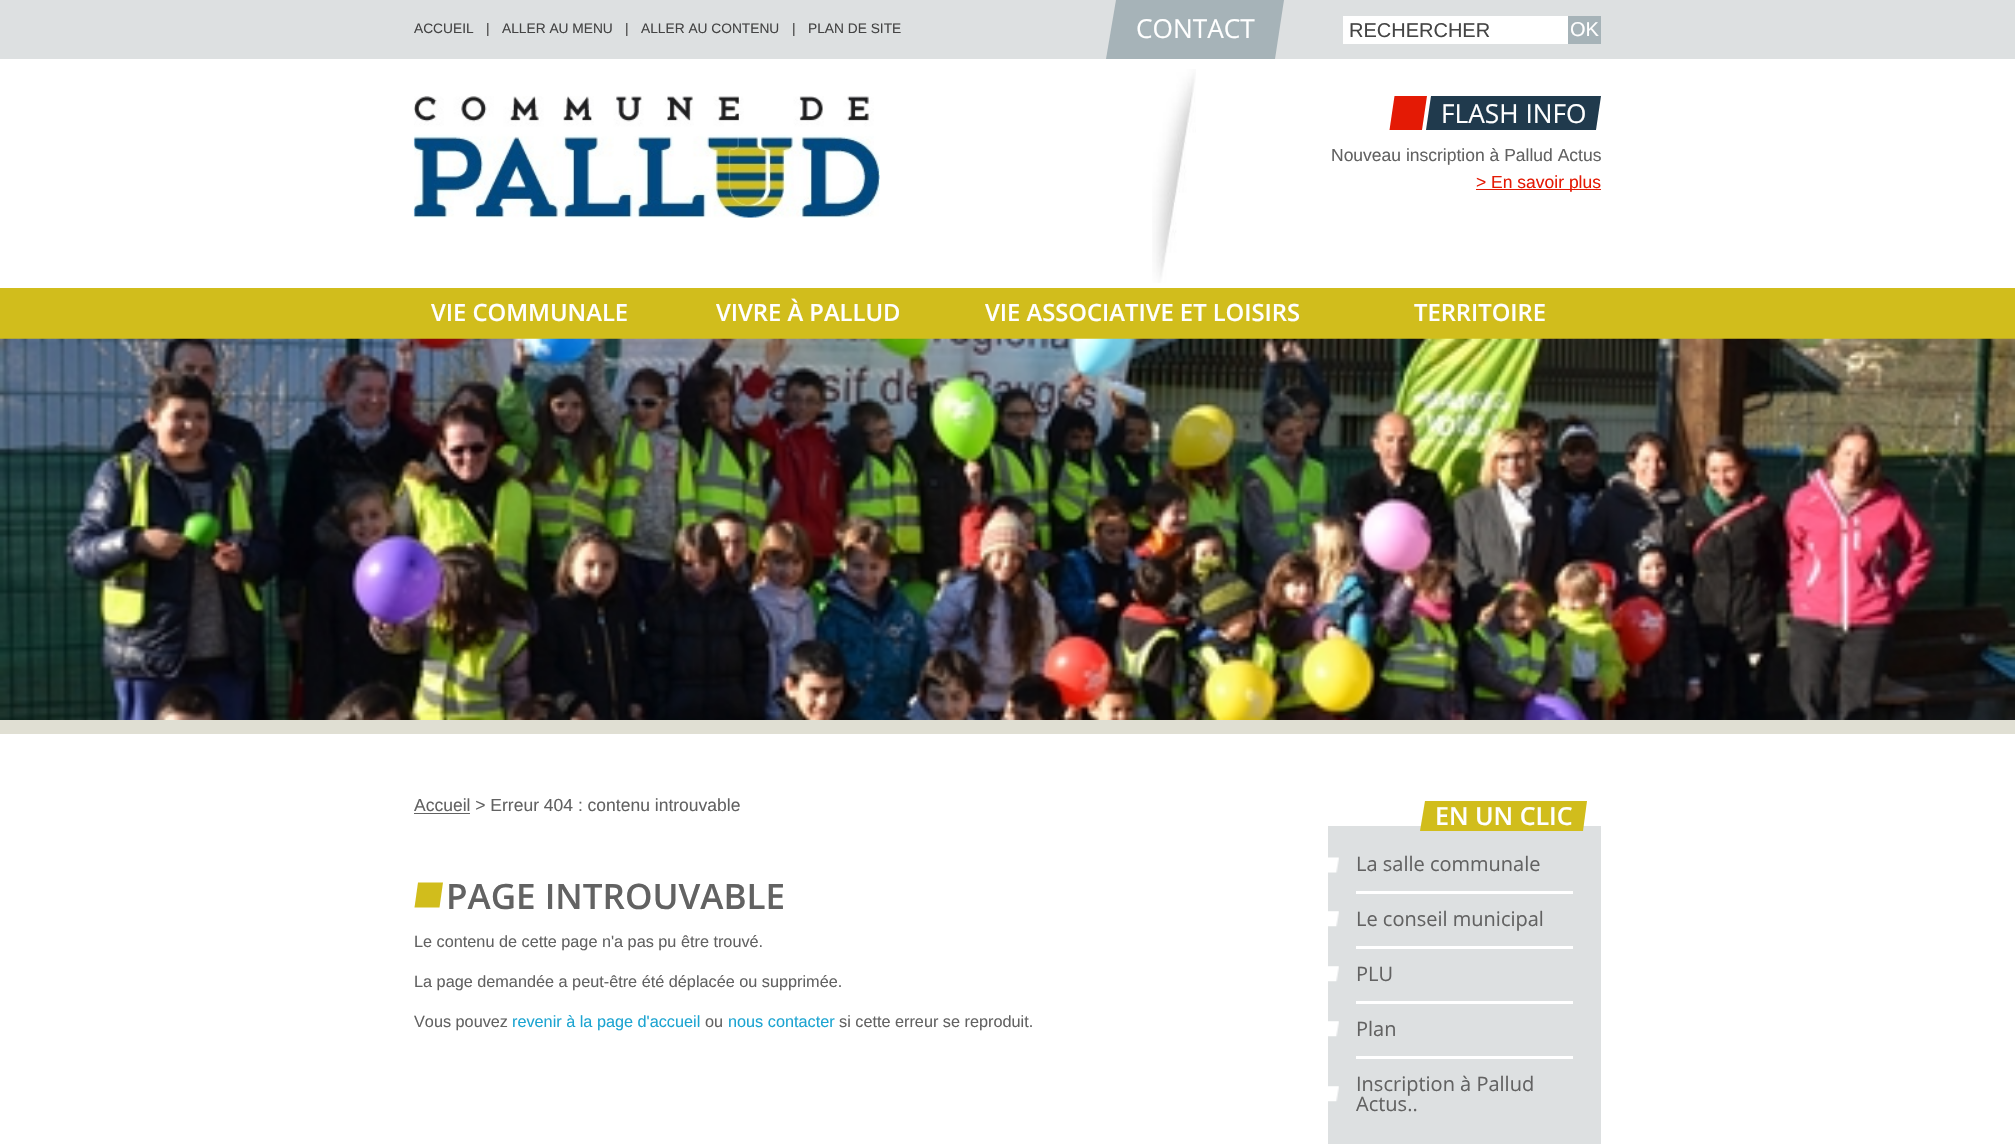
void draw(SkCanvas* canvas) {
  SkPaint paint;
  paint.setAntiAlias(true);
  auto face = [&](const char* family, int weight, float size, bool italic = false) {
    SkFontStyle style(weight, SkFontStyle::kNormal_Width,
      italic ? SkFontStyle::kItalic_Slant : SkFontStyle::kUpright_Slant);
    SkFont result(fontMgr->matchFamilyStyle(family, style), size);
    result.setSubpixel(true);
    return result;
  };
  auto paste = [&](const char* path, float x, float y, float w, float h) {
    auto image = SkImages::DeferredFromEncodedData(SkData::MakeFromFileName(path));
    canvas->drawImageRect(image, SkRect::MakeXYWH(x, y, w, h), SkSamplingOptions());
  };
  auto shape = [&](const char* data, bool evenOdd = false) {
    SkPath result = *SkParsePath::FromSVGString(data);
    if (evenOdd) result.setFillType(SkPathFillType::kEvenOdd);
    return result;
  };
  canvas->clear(0xffffffff);
  paint.setColor(0xffdde0e1);
  canvas->drawRect(SkRect::MakeXYWH(0, 0, 2015, 59), paint);
  paint.setColor(0xffa6b3b8);
  canvas->drawPath(shape("M1116 0H1284L1275 59H1106Z"), paint);
  paint.setColor(0xffffffff);
  canvas->drawRect(SkRect::MakeXYWH(1343, 16, 225, 28), paint);
  paint.setColor(0xffa6b3b8);
  canvas->drawRect(SkRect::MakeXYWH(1568, 16, 33, 28), paint);
  paste("img/1.png", 1152, 69, 44, 214);
  paste("img/2.png", 413, 96, 467, 122);
  paint.setColor(0xffe41a05);
  canvas->drawPath(shape("M1394.5 96H1427L1422 130H1389.5Z"), paint);
  paint.setColor(0xff203a4d);
  canvas->drawPath(shape("M1431 96H1601L1596 130H1426Z"), paint);
  paint.setColor(0xffe41a05);
  canvas->drawRect(SkRect::MakeXYWH(1476, 189, 125, 1), paint);
  paint.setColor(0xffd1bd1c);
  canvas->drawRect(SkRect::MakeXYWH(0, 288, 2015, 51), paint);
  paste("img/3.png", 0, 338, 2015, 382);
  paint.setColor(0xffe0dfd3);
  canvas->drawRect(SkRect::MakeXYWH(0, 720, 2015, 14), paint);
  paint.setColor(0xff626262);
  canvas->drawRect(SkRect::MakeXYWH(414, 813, 56, 1), paint);
  paint.setColor(0xffd1bd1c);
  canvas->drawPath(shape("M418 882.5H443L439.5 907.5H414.5Z"), paint);
  paint.setColor(0xffdde0e1);
  canvas->drawRect(SkRect::MakeXYWH(1328, 826, 273, 318), paint);
  paint.setColor(0xffd1bd1c);
  canvas->drawPath(shape("M1425 801H1587L1583 831H1420Z"), paint);
  paste("img/4.png", 1328, 857, 11, 16);
  paste("img/5.png", 1328, 911, 11, 16);
  paint.setColor(0xffffffff);
  canvas->drawRect(SkRect::MakeXYWH(1356, 891, 217, 3), paint);
  paste("img/5.png", 1328, 966, 11, 16);
  canvas->drawRect(SkRect::MakeXYWH(1356, 946, 217, 3), paint);
  paste("img/6.png", 1328, 1021, 11, 16);
  canvas->drawRect(SkRect::MakeXYWH(1356, 1001, 217, 3), paint);
  paste("img/5.png", 1328, 1086, 11, 16);
  canvas->drawRect(SkRect::MakeXYWH(1356, 1056, 217, 3), paint);
  auto f0 = face("Liberation Sans", 400, 13.75f);
  paint.setColor(0xff444444);
  {
    const struct { const char* s; float x, y; } items[] = {
      {"ACCUEIL", 414, 33},
      {"|", 486, 33},
      {"ALLER AU MENU", 502, 33},
      {"|", 625, 33},
      {"ALLER AU CONTENU", 641, 33},
      {"|", 792, 33},
      {"PLAN DE SITE", 808, 33},
    };
    for (auto [s, x, y] : items) {
      canvas->drawString(s, x, y, f0, paint);
    }
  }
  auto f1 = face("Open Sans", 400, 26.25f);
  paint.setColor(0xffffffff);
  canvas->drawString("CONTACT", 1136, 38, f1, paint);
  auto f2 = face("Liberation Sans", 400, 20);
  paint.setColor(0xff444444);
  canvas->drawString("RECHERCHER", 1349, 37, f2, paint);
  paint.setColor(0xffffffff);
  canvas->drawString("OK", 1570, 36, f2, paint);
  canvas->drawString("FLASH INFO", 1441, 123, f1, paint);
  auto f3 = face("Liberation Sans", 400, 17.5f);
  paint.setColor(0xff626262);
  canvas->drawString("Nouveau inscription à Pallud Actus", 1331, 161, f3, paint);
  paint.setColor(0xffe41a05);
  canvas->drawString("> En savoir plus", 1476, 188, f3, paint);
  auto f4 = face("Open Sans", 600, 23.75f);
  paint.setColor(0xffffffff);
  {
    const struct { const char* s; float x, y; } items[] = {
      {"VIE COMMUNALE", 431, 321},
      {"VIVRE À PALLUD", 716, 321},
      {"VIE ASSOCIATIVE ET LOISIRS", 985, 321},
      {"TERRITOIRE", 1414, 321},
    };
    for (auto [s, x, y] : items) {
      canvas->drawString(s, x, y, f4, paint);
    }
  }
  paint.setColor(0xff626262);
  canvas->drawString("Accueil > Erreur 404 : contenu introuvable", 414, 811, f3, paint);
  auto f5 = face("Open Sans", 600, 35);
  canvas->drawString("PAGE INTROUVABLE", 446, 909, f5, paint);
  auto f6 = face("Liberation Sans", 400, 16.25f);
  {
    const struct { const char* s; float x, y; } items[] = {
      {"Le contenu de cette page n'a pas pu être trouvé.", 414, 947},
      {"La page demandée a peut-être été déplacée ou supprimée.", 414, 987},
      {"Vous pouvez", 414, 1027},
    };
    for (auto [s, x, y] : items) {
      canvas->drawString(s, x, y, f6, paint);
    }
  }
  paint.setColor(0xff1ca4d1);
  canvas->drawString("revenir à la page d'accueil", 512, 1027, f6, paint);
  paint.setColor(0xff626262);
  canvas->drawString("ou", 705, 1027, f6, paint);
  paint.setColor(0xff1ca4d1);
  canvas->drawString("nous contacter", 728, 1027, f6, paint);
  paint.setColor(0xff626262);
  canvas->drawString("si cette erreur se reproduit.", 839, 1027, f6, paint);
  auto f7 = face("Open Sans", 600, 25);
  paint.setColor(0xffffffff);
  canvas->drawString("EN UN CLIC", 1435, 825, f7, paint);
  auto f8 = face("Open Sans", 400, 20);
  paint.setColor(0xff626262);
  {
    const struct { const char* s; float x, y; } items[] = {
      {"La salle communale", 1356, 871},
      {"Le conseil municipal", 1356, 926},
      {"PLU", 1356, 981},
      {"Plan", 1356, 1036},
      {"Inscription à Pallud", 1356, 1091},
      {"Actus..", 1356, 1111},
    };
    for (auto [s, x, y] : items) {
      canvas->drawString(s, x, y, f8, paint);
    }
  }
}
